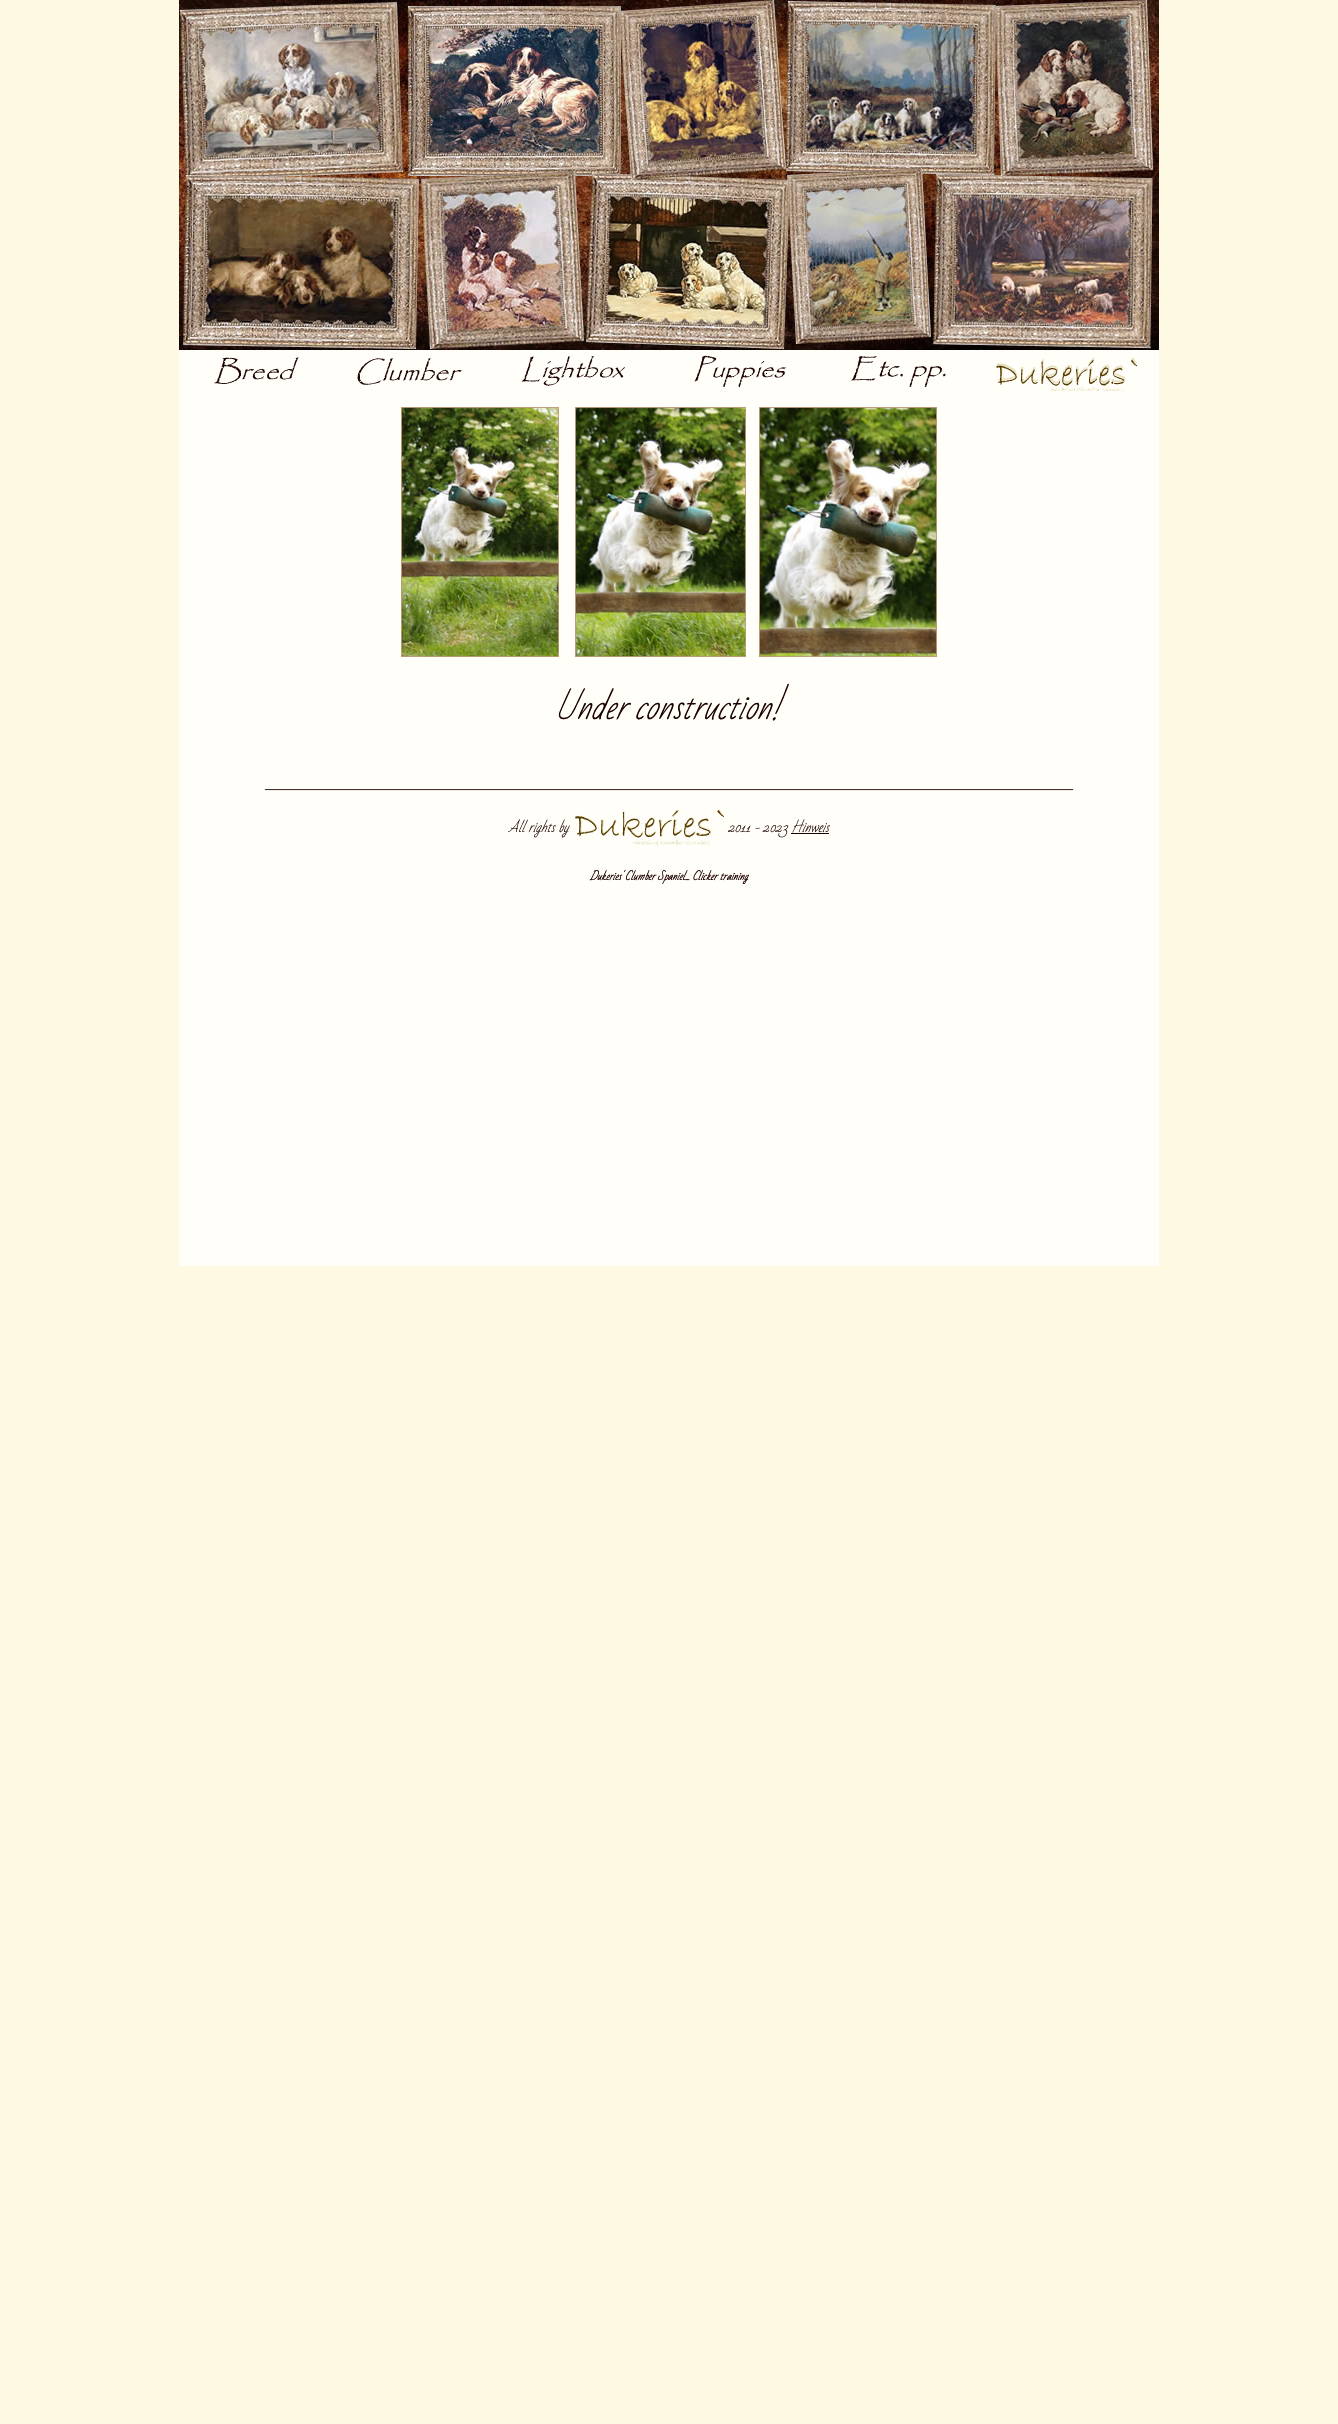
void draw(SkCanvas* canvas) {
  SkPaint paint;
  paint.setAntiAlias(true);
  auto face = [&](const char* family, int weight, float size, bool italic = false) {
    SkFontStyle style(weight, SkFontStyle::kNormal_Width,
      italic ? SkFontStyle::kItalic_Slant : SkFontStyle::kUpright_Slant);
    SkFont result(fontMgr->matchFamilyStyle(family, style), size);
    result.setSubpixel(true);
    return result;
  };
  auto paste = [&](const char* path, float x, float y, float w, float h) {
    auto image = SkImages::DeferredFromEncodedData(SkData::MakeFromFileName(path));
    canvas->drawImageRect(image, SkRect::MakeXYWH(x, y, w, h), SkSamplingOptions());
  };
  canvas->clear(0xfffdf9e3);
  paint.setColor(0xfffffef9);
  canvas->drawRect(SkRect::MakeXYWH(179, 350, 980, 916), paint);
  paste("img/1.png", 179, 0, 980, 350);
  paste("img/2.png", 214, 357, 85, 27);
  paste("img/3.png", 357, 358, 105, 27);
  paste("img/4.png", 521, 356, 104, 30);
  paste("img/5.png", 694, 355, 92, 32);
  paste("img/6.png", 851, 356, 95, 31);
  paste("img/7.png", 996, 357, 141, 34);
  paste("img/8.png", 401, 407, 158, 250);
  paste("img/9.png", 575, 407, 171, 250);
  paste("img/10.png", 759, 407, 178, 250);
  paste("img/11.png", 575, 809, 149, 37);
  paint.setColor(0xff1c0000);
  canvas->drawRect(SkRect::MakeXYWH(791, 833, 38, 1), paint);
  auto f0 = face("Bad Script", 400, 32, true);
  canvas->drawString("Under construction!", 556, 719, f0, paint);
  auto f1 = face("Liberation Serif", 400, 16);
  canvas->drawString("_____________________________________________________________________________________________________", 265, 788, f1, paint);
  auto f2 = face("Bad Script", 400, 13, true);
  canvas->drawString("All rights by", 509, 832, f2, paint);
  canvas->drawString("2011 - 2023 Hinweis", 728, 832, f2, paint);
  auto f3 = face("Bad Script", 700, 10, true);
  canvas->drawString("Dukeries' Clumber Spaniel.... Clicker training", 590, 880, f3, paint);
}
